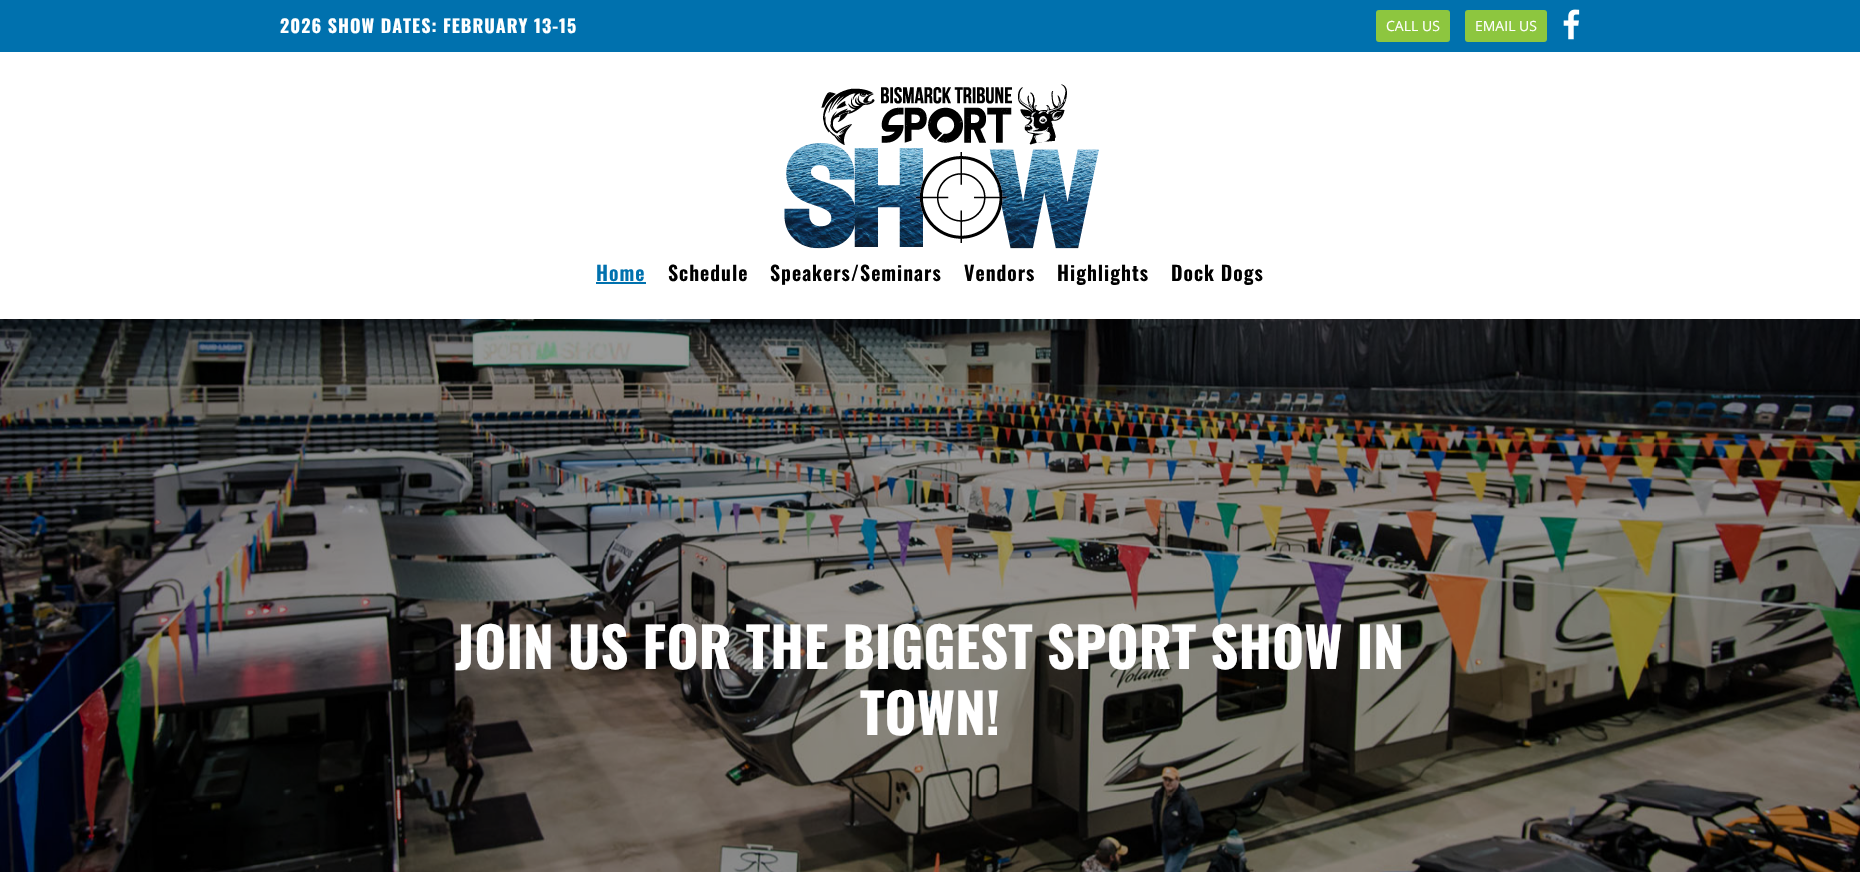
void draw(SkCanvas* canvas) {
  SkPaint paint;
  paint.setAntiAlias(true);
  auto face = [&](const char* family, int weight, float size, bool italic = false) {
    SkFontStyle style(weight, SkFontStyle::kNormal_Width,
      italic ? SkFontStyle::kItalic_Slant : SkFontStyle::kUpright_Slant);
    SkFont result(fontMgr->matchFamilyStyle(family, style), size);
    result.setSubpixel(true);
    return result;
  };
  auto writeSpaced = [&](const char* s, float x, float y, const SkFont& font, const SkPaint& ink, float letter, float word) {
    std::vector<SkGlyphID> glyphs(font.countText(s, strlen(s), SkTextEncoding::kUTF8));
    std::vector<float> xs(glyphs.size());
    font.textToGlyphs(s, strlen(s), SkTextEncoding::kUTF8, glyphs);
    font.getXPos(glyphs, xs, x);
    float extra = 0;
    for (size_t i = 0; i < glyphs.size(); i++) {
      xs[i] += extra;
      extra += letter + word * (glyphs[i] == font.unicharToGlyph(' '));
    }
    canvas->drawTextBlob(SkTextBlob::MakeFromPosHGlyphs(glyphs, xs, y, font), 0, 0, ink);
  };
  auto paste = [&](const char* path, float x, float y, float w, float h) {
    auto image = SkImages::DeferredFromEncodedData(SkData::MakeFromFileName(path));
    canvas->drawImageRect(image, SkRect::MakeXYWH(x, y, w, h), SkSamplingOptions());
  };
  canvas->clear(0xffffffff);
  paint.setColor(0xff0071ae);
  canvas->drawRect(SkRect::MakeXYWH(0, 0, 1860, 52), paint);
  paint.setColor(0xff8dc63f);
  canvas->drawRoundRect(SkRect::MakeXYWH(1376, 10, 74, 32), 3, 3, paint);
  canvas->drawRoundRect(SkRect::MakeXYWH(1465, 10, 82, 32), 3, 3, paint);
  paste("img/1.png", 1563, 9, 17, 31);
  paste("img/2.png", 784, 84, 315, 165);
  paint.setColor(0xff0071ae);
  canvas->drawRect(SkRect::MakeXYWH(596, 282, 50, 2), paint);
  paste("img/3.png", 0, 319, 1860, 553);
  auto f0 = face("Oswald", 700, 18);
  paint.setColor(0xffffffff);
  writeSpaced("2026 SHOW DATES: FEBRUARY 13-15", 280, 33, f0, paint, 1, 0);
  auto f1 = face("Open Sans", 400, 14);
  canvas->drawString("CALL US", 1386, 31, f1, paint);
  canvas->drawString("EMAIL US", 1475, 31, f1, paint);
  auto f2 = face("Oswald", 600, 20);
  paint.setColor(0xff0071ae);
  writeSpaced("Home", 596, 281, f2, paint, 1, 0);
  paint.setColor(0xff000000);
  {
    const struct { const char* s; float x, y; } items[] = {
      {"Schedule", 668, 281},
      {"Speakers/Seminars", 770, 281},
      {"Vendors", 964, 281},
      {"Highlights", 1057, 281},
      {"Dock Dogs", 1171, 281},
    };
    for (auto [s, x, y] : items) {
      writeSpaced(s, x, y, f2, paint, 1, 0);
    }
  }
  auto f3 = face("Oswald", 700, 55);
  paint.setColor(0xffffffff);
  canvas->drawString("JOIN US FOR THE BIGGEST SPORT SHOW IN", 455, 669, f3, paint);
  canvas->drawString("TOWN!", 860, 735, f3, paint);
}
